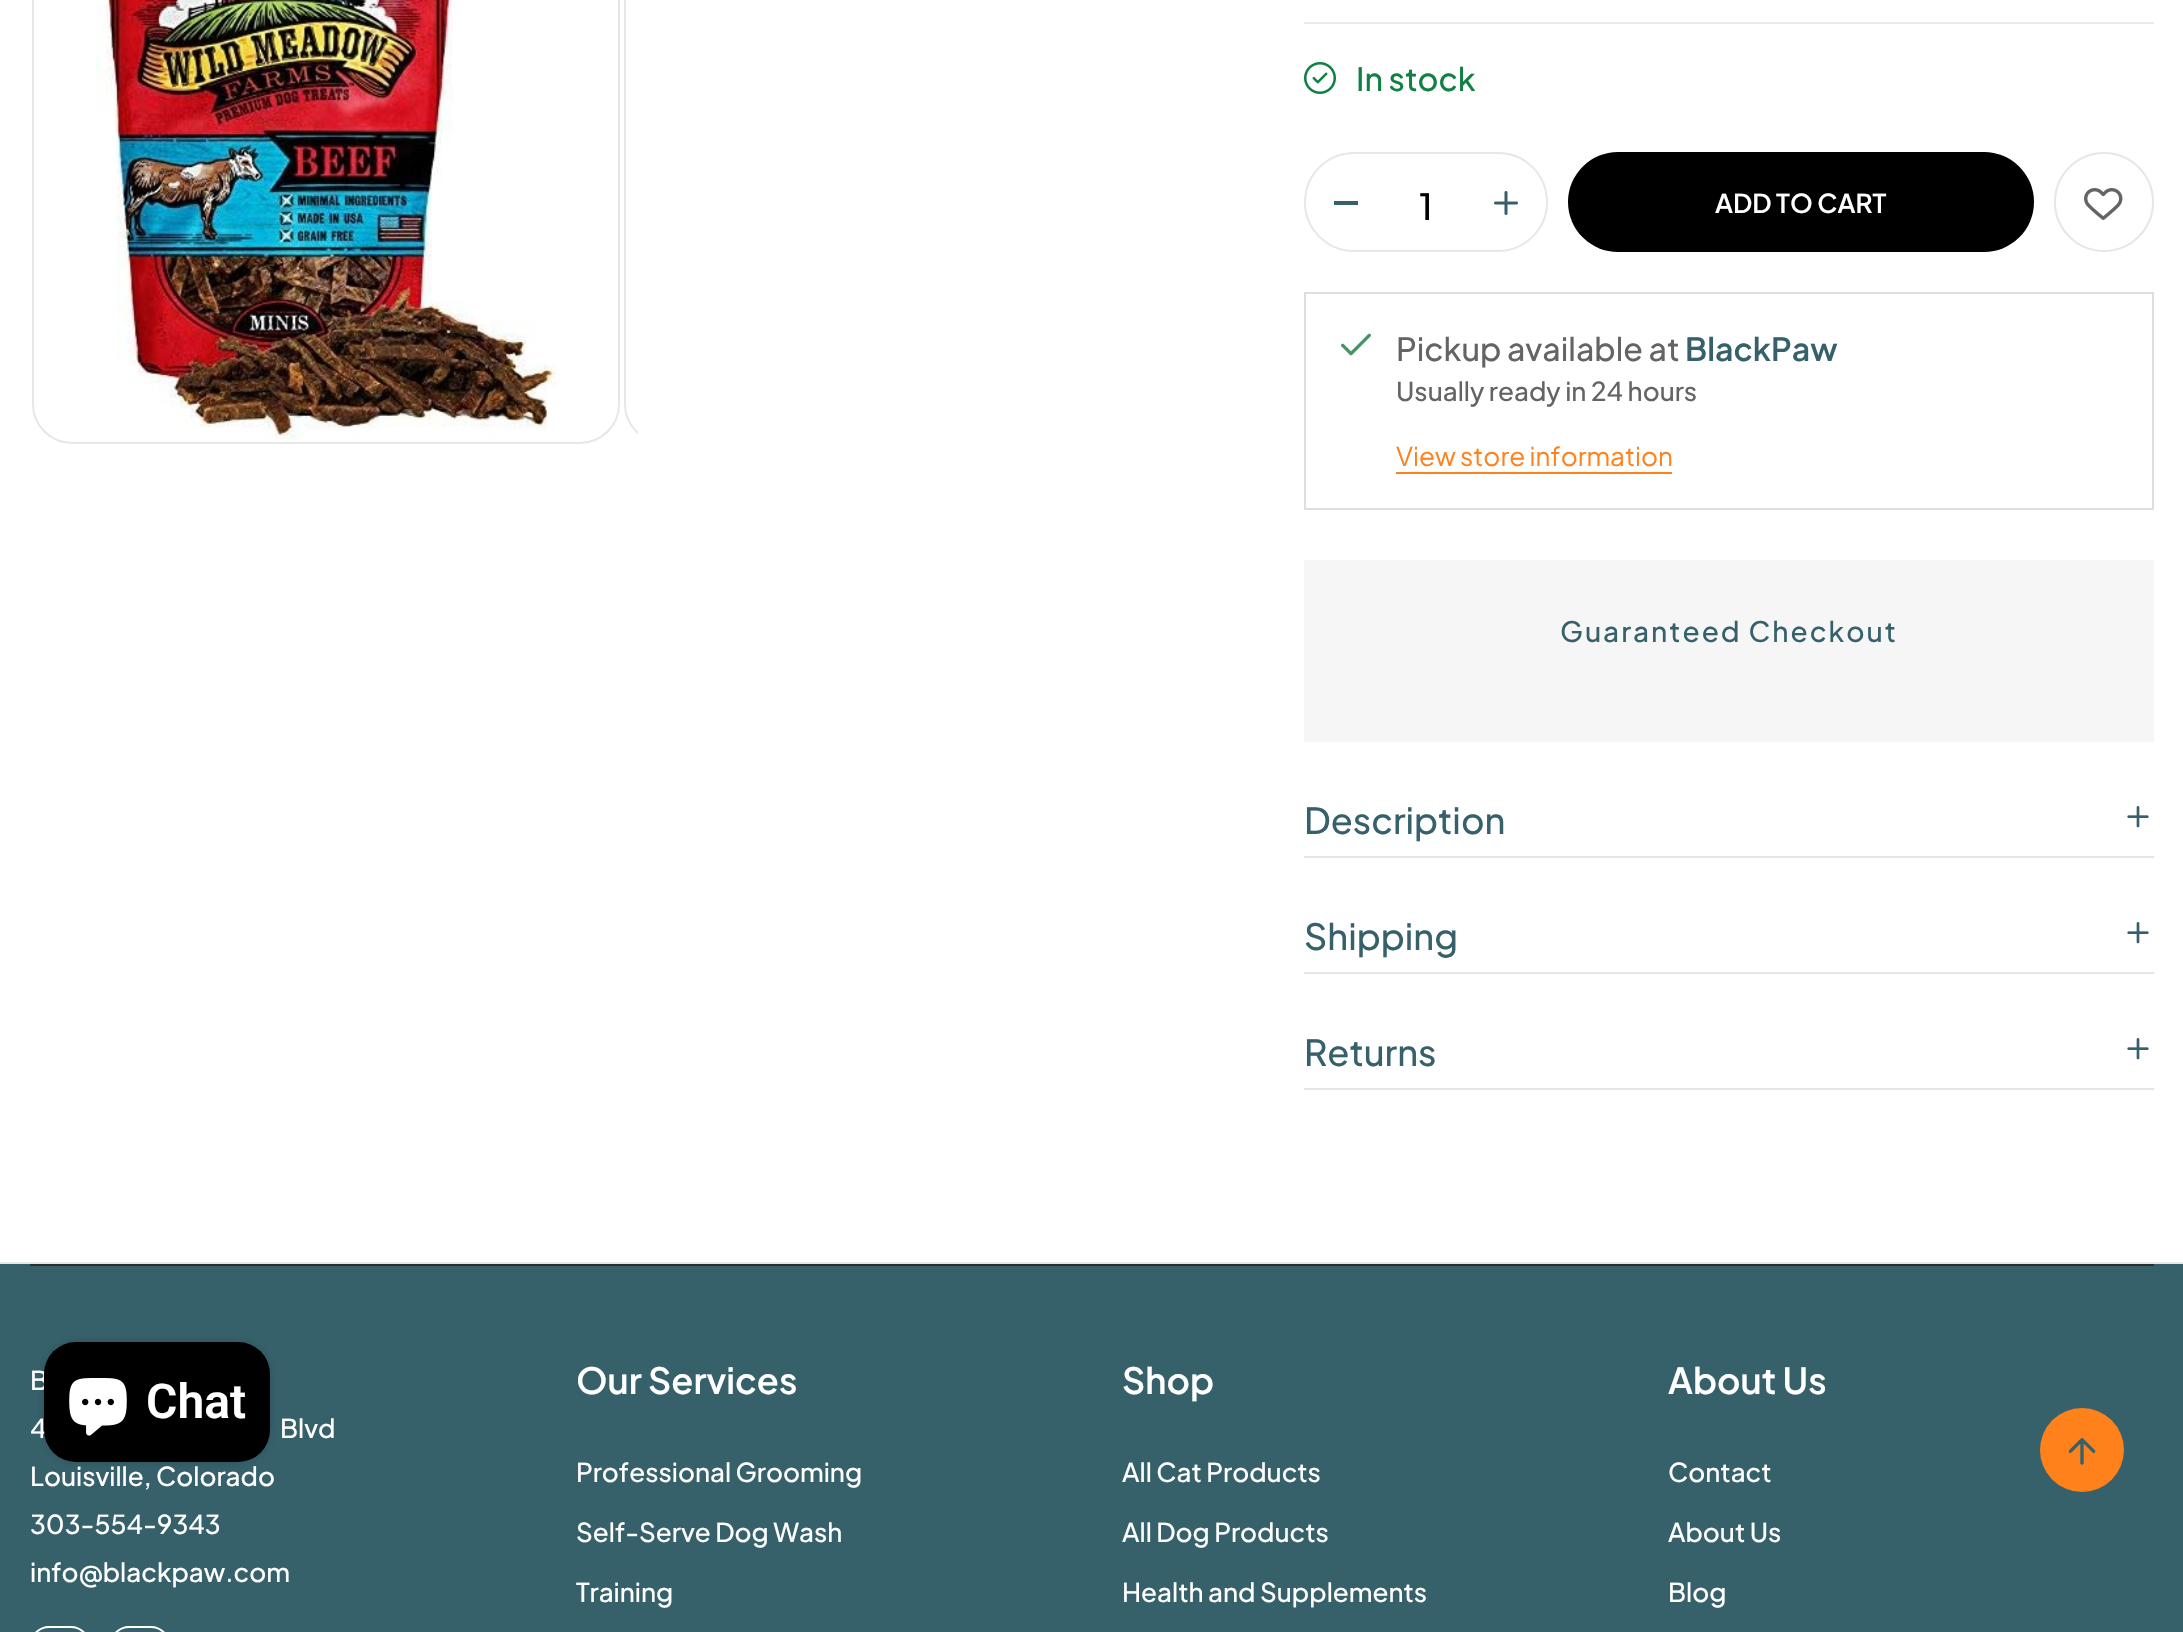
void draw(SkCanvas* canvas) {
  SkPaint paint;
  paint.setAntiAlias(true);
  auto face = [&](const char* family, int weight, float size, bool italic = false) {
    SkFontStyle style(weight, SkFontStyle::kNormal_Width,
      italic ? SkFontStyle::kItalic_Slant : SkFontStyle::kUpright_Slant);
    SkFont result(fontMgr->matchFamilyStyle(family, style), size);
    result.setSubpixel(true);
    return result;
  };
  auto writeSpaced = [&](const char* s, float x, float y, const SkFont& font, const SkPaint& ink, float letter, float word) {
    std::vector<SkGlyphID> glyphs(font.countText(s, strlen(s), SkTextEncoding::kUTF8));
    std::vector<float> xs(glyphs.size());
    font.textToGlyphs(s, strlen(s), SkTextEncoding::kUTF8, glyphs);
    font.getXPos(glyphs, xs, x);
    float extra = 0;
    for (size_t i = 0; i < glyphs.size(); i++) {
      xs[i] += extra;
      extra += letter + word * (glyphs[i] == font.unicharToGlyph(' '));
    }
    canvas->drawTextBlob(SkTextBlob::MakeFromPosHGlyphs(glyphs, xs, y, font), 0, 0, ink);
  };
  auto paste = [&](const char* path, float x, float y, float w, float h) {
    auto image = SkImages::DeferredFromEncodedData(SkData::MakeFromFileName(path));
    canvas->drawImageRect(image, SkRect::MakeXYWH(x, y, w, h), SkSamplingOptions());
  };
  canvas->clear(0xffffffff);
  paint.setStroke(true);
  paint.setStrokeWidth(2);
  paint.setColor(0xffe7e7e7);
  canvas->drawRoundRect(SkRect::MakeXYWH(33, -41, 586, 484), 39, 39, paint);
  paste("img/1.png", 96, 0, 460, 442);
  canvas->save();
  canvas->clipRect(SkRect::MakeXYWH(16, 0, 622, 444));
  canvas->drawRoundRect(SkRect::MakeXYWH(625, -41, 586, 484), 39, 39, paint);
  canvas->restore();
  paint.setStroke(false);
  paint.setColor(0xffe9e9e9);
  canvas->drawRect(SkRect::MakeXYWH(1304, 22, 850, 2), paint);
  paste("img/2.png", 1304, 62, 32, 32);
  paint.setStroke(true);
  paint.setColor(0xffe7e7e7);
  canvas->drawRoundRect(SkRect::MakeXYWH(1305, 153, 242, 98), 49, 49, paint);
  paint.setStroke(false);
  paint.setColor(0xff36616b);
  canvas->drawRect(SkRect::MakeXYWH(1334, 201, 24, 4), paint);
  paste("img/3.png", 1494, 191, 24, 24);
  paint.setColor(0xff000000);
  canvas->drawRoundRect(SkRect::MakeXYWH(1568, 152, 466, 100), 50, 50, paint);
  paint.setStroke(true);
  paint.setColor(0xffe6e6e6);
  canvas->drawCircle(2104, 202, 49, paint);
  paste("img/4.png", 2084, 188, 39, 32);
  paint.setColor(0xffdedede);
  canvas->drawRect(SkRect::MakeXYWH(1305, 293, 848, 216), paint);
  paste("img/5.png", 1341, 333, 30, 23);
  paint.setStroke(false);
  {
    const struct { float x, y, w, h; SkColor color; } items[] = {
      {1396, 472, 276, 2, 0xffff811b},
      {1304, 560, 850, 182, 0xfff6f6f6},
      {1304, 856, 850, 2, 0xffe5e5e5},
    };
    for (auto [x, y, w, h, color] : items) {
      paint.setColor(color);
      canvas->drawRect(SkRect::MakeXYWH(x, y, w, h), paint);
    }
  }
  paste("img/6.png", 2127, 806, 22, 22);
  canvas->drawRect(SkRect::MakeXYWH(1304, 972, 850, 2), paint);
  paste("img/6.png", 2127, 922, 22, 22);
  canvas->drawRect(SkRect::MakeXYWH(1304, 1088, 850, 2), paint);
  paste("img/6.png", 2127, 1038, 22, 22);
  {
    const struct { float x, y, w, h; SkColor color; } items[] = {
      {0, 1262, 2183, 2, 0xffe7e7e7},
      {0, 1264, 2183, 368, 0xff36616b},
      {30, 1264, 2124, 2, 0xff2d2d2d},
    };
    for (auto [x, y, w, h, color] : items) {
      paint.setColor(color);
      canvas->drawRect(SkRect::MakeXYWH(x, y, w, h), paint);
    }
  }
  paint.setStroke(true);
  paint.setColor(0xffffffff);
  canvas->drawRoundRect(SkRect::MakeXYWH(31, 1627, 58, 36), 29, 29, paint);
  canvas->drawRoundRect(SkRect::MakeXYWH(111, 1627, 58, 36), 29, 29, paint);
  paint.setStroke(false);
  paint.setColor(0x26000000);
  paint.setMaskFilter(SkMaskFilter::MakeBlur(kNormal_SkBlurStyle, 5));
  canvas->drawRoundRect(SkRect::MakeXYWH(44, 1342, 226, 120), 32, 32, paint);
  paint.setMaskFilter(nullptr);
  paint.setColor(0xffff811b);
  canvas->drawCircle(2082, 1450, 42, paint);
  paste("img/8.png", 2068, 1438, 28, 27);
  auto f0 = face("Plus Jakarta Sans", 500, 32);
  paint.setColor(0xff108043);
  canvas->drawString("In stock", 1356, 91, f0, paint);
  auto f1 = face("Plus Jakarta Sans", 500, 36);
  paint.setColor(0xff000000);
  canvas->drawString("1", 1419, 220, f1, paint);
  auto f2 = face("Plus Jakarta Sans", 600, 26);
  paint.setColor(0xffffffff);
  canvas->drawString("ADD TO CART", 1715, 213, f2, paint);
  paint.setColor(0xff646464);
  canvas->drawString("Pickup available at", 1396, 361, f0, paint);
  auto f3 = face("Plus Jakarta Sans", 600, 32);
  paint.setColor(0xff36616b);
  canvas->drawString("BlackPaw", 1685, 361, f3, paint);
  auto f4 = face("Plus Jakarta Sans", 500, 26);
  paint.setColor(0xff646464);
  canvas->drawString("Usually ready in 24 hours", 1396, 401, f4, paint);
  auto f5 = face("Plus Jakarta Sans", 400, 26);
  paint.setColor(0xffff811b);
  canvas->drawString("View store information", 1396, 466, f5, paint);
  auto f6 = face("Plus Jakarta Sans", 500, 28);
  paint.setColor(0xff36616b);
  writeSpaced("Guaranteed Checkout", 1560, 642, f6, paint, 2, 0);
  {
    const struct { const char* s; float x, y; } items[] = {
      {"Description", 1304, 834},
      {"Shipping", 1304, 950},
      {"Returns", 1304, 1066},
    };
    for (auto [s, x, y] : items) {
      canvas->drawString(s, x, y, f1, paint);
    }
  }
  paint.setColor(0xffffffff);
  {
    const struct { const char* s; float x, y; } items[] = {
      {"B", 30, 1390},
      {"4", 30, 1438},
      {"Blvd", 280, 1438},
      {"Louisville, Colorado", 30, 1486},
      {"303-554-9343", 30, 1534},
      {"info@blackpaw.com", 30, 1582},
    };
    for (auto [s, x, y] : items) {
      canvas->drawString(s, x, y, f4, paint);
    }
  }
  auto f7 = face("Plus Jakarta Sans", 600, 36);
  canvas->drawString("Our Services", 576, 1394, f7, paint);
  {
    const struct { const char* s; float x, y; } items[] = {
      {"Professional Grooming", 576, 1482},
      {"Self-Serve Dog Wash", 576, 1542},
      {"Training", 576, 1602},
    };
    for (auto [s, x, y] : items) {
      canvas->drawString(s, x, y, f4, paint);
    }
  }
  canvas->drawString("Shop", 1122, 1394, f7, paint);
  {
    const struct { const char* s; float x, y; } items[] = {
      {"All Cat Products", 1122, 1482},
      {"All Dog Products", 1122, 1542},
      {"Health and Supplements", 1122, 1602},
    };
    for (auto [s, x, y] : items) {
      canvas->drawString(s, x, y, f4, paint);
    }
  }
  canvas->drawString("About Us", 1668, 1394, f7, paint);
  {
    const struct { const char* s; float x, y; } items[] = {
      {"Contact", 1668, 1482},
      {"About Us", 1668, 1542},
      {"Blog", 1668, 1602},
    };
    for (auto [s, x, y] : items) {
      canvas->drawString(s, x, y, f4, paint);
    }
  }
  paint.setColor(0xff000000);
  canvas->drawRoundRect(SkRect::MakeXYWH(44, 1342, 226, 120), 32, 32, paint);
  paste("img/7.png", 69, 1378, 58, 58);
  auto f8 = face("Roboto", 600, 48);
  paint.setColor(0xffffffff);
  canvas->drawString("Chat", 146, 1418, f8, paint);
}
